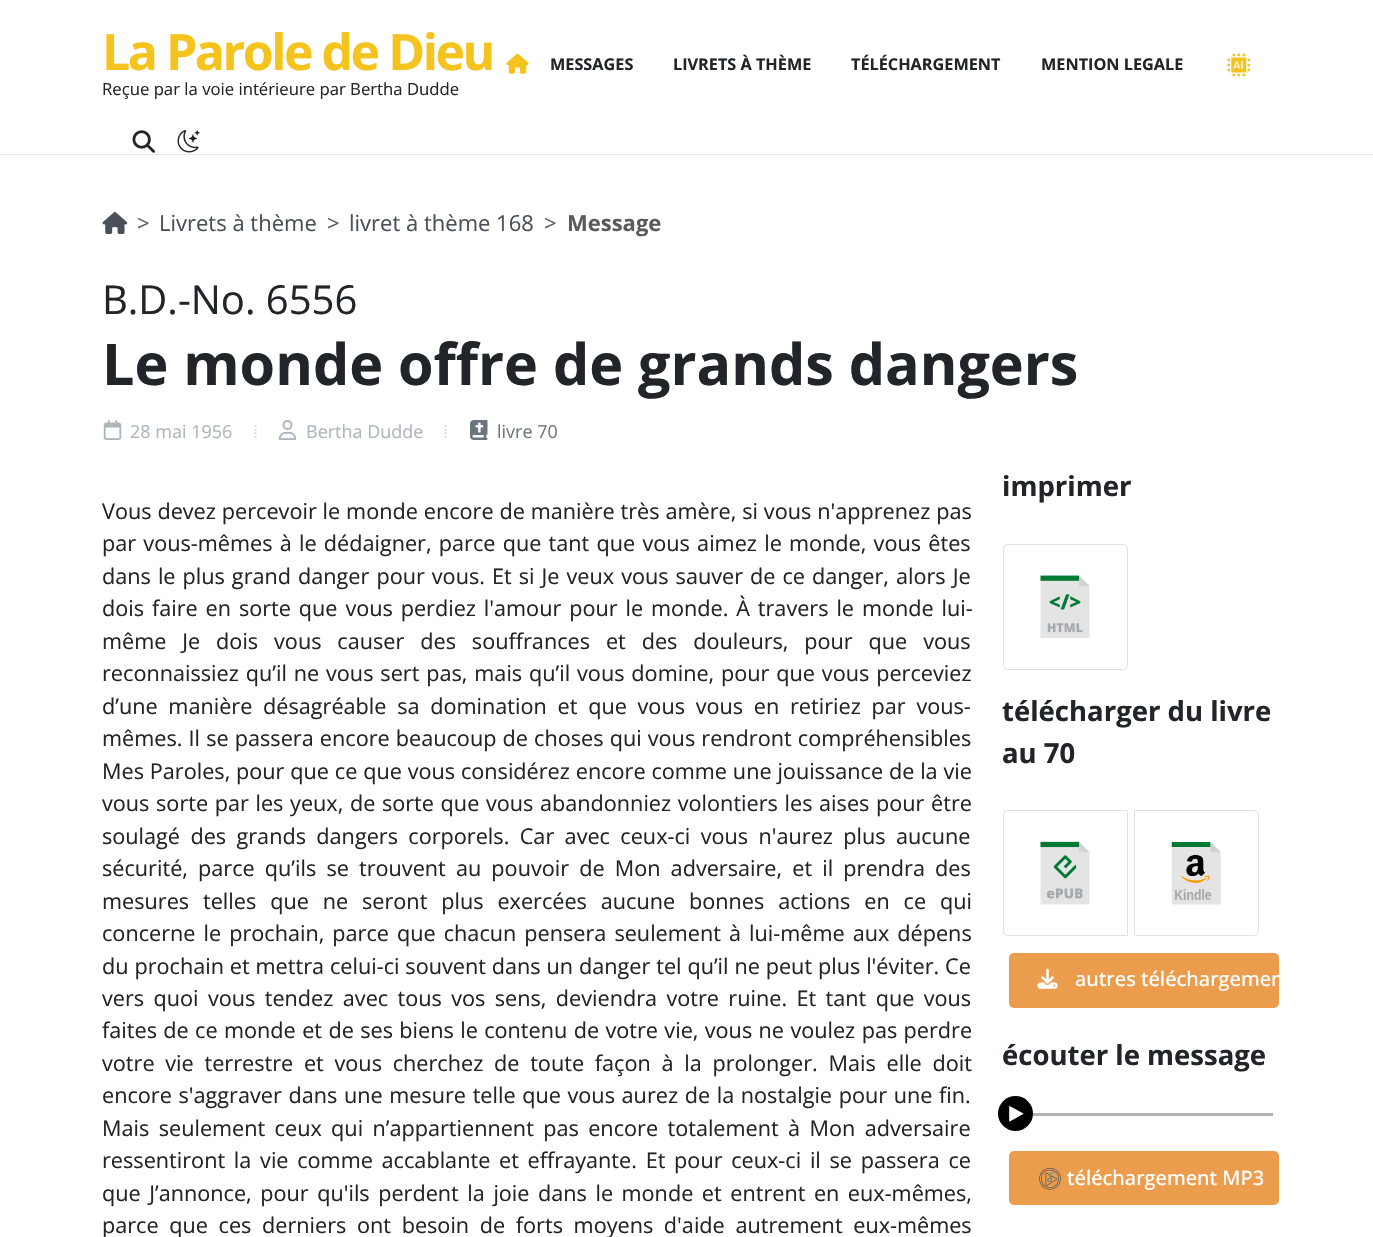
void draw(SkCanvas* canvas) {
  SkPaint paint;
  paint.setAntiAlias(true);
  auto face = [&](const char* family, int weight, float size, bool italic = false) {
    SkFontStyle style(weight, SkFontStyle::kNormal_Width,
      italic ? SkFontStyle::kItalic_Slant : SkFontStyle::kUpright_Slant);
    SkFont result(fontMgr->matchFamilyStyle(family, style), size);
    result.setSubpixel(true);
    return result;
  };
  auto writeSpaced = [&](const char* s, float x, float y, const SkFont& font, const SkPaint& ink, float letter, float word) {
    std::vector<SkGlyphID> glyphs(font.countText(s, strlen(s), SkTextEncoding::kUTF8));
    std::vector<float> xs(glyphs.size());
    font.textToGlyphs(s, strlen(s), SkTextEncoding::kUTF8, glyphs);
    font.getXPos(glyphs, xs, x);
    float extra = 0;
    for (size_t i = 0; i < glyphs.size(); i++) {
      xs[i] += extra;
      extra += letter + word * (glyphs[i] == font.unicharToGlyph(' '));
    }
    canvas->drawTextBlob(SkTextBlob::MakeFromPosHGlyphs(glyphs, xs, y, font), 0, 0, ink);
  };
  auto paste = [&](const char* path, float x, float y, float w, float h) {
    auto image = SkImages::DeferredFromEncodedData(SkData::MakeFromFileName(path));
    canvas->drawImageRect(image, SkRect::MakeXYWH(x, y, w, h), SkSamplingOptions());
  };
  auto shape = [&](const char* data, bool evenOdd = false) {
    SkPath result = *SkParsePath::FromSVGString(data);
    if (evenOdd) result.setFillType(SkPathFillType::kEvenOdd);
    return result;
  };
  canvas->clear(0xffffffff);
  paint.setColor(0xffe6e6e6);
  canvas->drawRect(SkRect::MakeXYWH(0, 154, 1373, 1), paint);
  paste("img/1.png", 506, 53, 23, 21);
  paste("img/2.png", 1227, 53, 23, 24);
  paste("img/3.png", 132, 130, 23, 23);
  paste("img/4.png", 177, 130, 23, 23);
  paste("img/5.png", 102, 212, 26, 22);
  paste("img/6.png", 103, 420, 19, 20);
  paste("img/7.png", 278, 420, 19, 20);
  paste("img/8.png", 470, 420, 18, 20);
  paint.setStroke(true);
  paint.setStrokeWidth(1);
  paint.setColor(0xffdee2e6);
  canvas->drawRoundRect(SkRect::MakeXYWH(1003.5f, 544.5f, 124, 125), 4.5f, 4.5f, paint);
  paste("img/9.png", 1040, 575, 50, 63);
  canvas->drawPath(shape("M1008 810.5H1127.5V935.5H1008C1005.5 935.5 1003.5 933.5 1003.5 931V815C1003.5 812.5 1005.5 810.5 1008 810.5Z"), paint);
  paste("img/10.png", 1040, 841, 50, 64);
  canvas->drawPath(shape("M1134.5 810.5H1254C1256.5 810.5 1258.5 812.5 1258.5 815V931C1258.5 933.5 1256.5 935.5 1254 935.5H1134.5Z"), paint);
  paste("img/11.png", 1171, 842, 50, 63);
  paint.setStroke(false);
  paint.setColor(0xffeb9c4d);
  canvas->drawRoundRect(SkRect::MakeXYWH(1009, 953, 270, 55), 5, 5, paint);
  paste("img/12.png", 1037, 968, 21, 21);
  paint.setColor(0xffb3b3b3);
  canvas->drawRect(SkRect::MakeXYWH(1032, 1113, 241, 3), paint);
  paint.setColor(0xff000000);
  canvas->drawCircle(1015.5f, 1113.5f, 17.5f, paint);
  paste("img/13.png", 1009, 1105, 15, 17);
  paint.setColor(0xffeb9c4d);
  canvas->drawRoundRect(SkRect::MakeXYWH(1009, 1151, 270, 54), 5, 5, paint);
  paste("img/14.png", 1039, 1168, 22, 22);
  auto f0 = face("Open Sans", 700, 50);
  paint.setColor(0xfff5c31d);
  writeSpaced("La Parole de Dieu", 102, 70, f0, paint, -2.5f, 0);
  auto f1 = face("Open Sans", 400, 16.7f);
  paint.setColor(0xff212529);
  canvas->drawString("Reçue par la voie intérieure par Bertha Dudde", 102, 95, f1, paint);
  auto f2 = face("Open Sans", 700, 16.25f);
  {
    const struct { const char* s; float x, y; } items[] = {
      {"MESSAGES", 550, 70},
      {"LIVRETS À THÈME", 673, 70},
      {"TÉLÉCHARGEMENT", 851, 70},
      {"MENTION LEGALE", 1041, 70},
    };
    for (auto [s, x, y] : items) {
      canvas->drawString(s, x, y, f2, paint);
    }
  }
  auto f3 = face("Open Sans", 400, 22);
  paint.setColor(0xff595c5f);
  canvas->drawString(">", 137, 231, f3, paint);
  paint.setColor(0xff495057);
  canvas->drawString("Livrets à thème", 159, 231, f3, paint);
  paint.setColor(0xff595c5f);
  canvas->drawString(">", 327, 231, f3, paint);
  paint.setColor(0xff495057);
  canvas->drawString("livret à thème 168", 349, 231, f3, paint);
  paint.setColor(0xff595c5f);
  canvas->drawString(">", 544, 231, f3, paint);
  auto f4 = face("Open Sans", 700, 22);
  canvas->drawString("Message", 567, 231, f4, paint);
  auto f5 = face("Open Sans", 400, 40);
  paint.setColor(0xff212529);
  canvas->drawString("B.D.-No. 6556", 102, 314, f5, paint);
  auto f6 = face("Open Sans", 700, 57.4f);
  canvas->drawString("Le monde offre de grands dangers", 102, 385, f6, paint);
  auto f7 = face("Open Sans", 400, 18);
  paint.setColor(0xffadb5bd);
  canvas->drawString("28 mai 1956", 130, 438, f7, paint);
  auto f8 = face("Liberation Sans", 400, 18);
  paint.setColor(0xffd6dade);
  canvas->drawString("⁞", 253, 438, f8, paint);
  paint.setColor(0xffadb5bd);
  canvas->drawString("Bertha Dudde", 306, 438, f7, paint);
  paint.setColor(0xffd6dade);
  canvas->drawString("⁞", 443, 438, f8, paint);
  paint.setColor(0xff6c757d);
  canvas->drawString("livre 70", 497, 438, f7, paint);
  auto f9 = face("Open Sans", 400, 21.65f);
  paint.setColor(0xff212529);
  writeSpaced("Vous devez percevoir le monde encore de manière très amère, si vous n'apprenez pas", 102, 519, f9, paint, 0, 0.25f);
  writeSpaced("par vous-mêmes à le dédaigner, parce que tant que vous aimez le monde, vous êtes", 102, 551, f9, paint, 0, 1.6f);
  writeSpaced("dans le plus grand danger pour vous. Et si Je veux vous sauver de ce danger, alors Je", 102, 584, f9, paint, 0, 1.4f);
  writeSpaced("dois faire en sorte que vous perdiez l'amour pour le monde. À travers le monde lui-", 102, 616, f9, paint, 0, 2.25f);
  writeSpaced("même Je dois vous causer des souffrances et des douleurs, pour que vous", 102, 649, f9, paint, 0, 10.25f);
  writeSpaced("reconnaissiez qu’il ne vous sert pas, mais qu’il vous domine, pour que vous perceviez", 102, 681, f9, paint, 0, 1.25f);
  writeSpaced("d’une manière désagréable sa domination et que vous vous en retiriez par vous-", 102, 714, f9, paint, 0, 5.1f);
  writeSpaced("mêmes. Il se passera encore beaucoup de choses qui vous rendront compréhensibles", 102, 746, f9, paint, 0, 0.5f);
  writeSpaced("Mes Paroles, pour que ce que vous considérez encore comme une jouissance de la vie", 102, 779, f9, paint, 0, 0.2f);
  writeSpaced("vous sorte par les yeux, de sorte que vous abandonniez volontiers les aises pour être", 102, 811, f9, paint, 0, 1);
  writeSpaced("soulagé des grands dangers corporels. Car avec ceux-ci vous n'aurez plus aucune", 102, 844, f9, paint, 0, 4.75f);
  writeSpaced("sécurité, parce qu’ils se trouvent au pouvoir de Mon adversaire, et il prendra des", 102, 876, f9, paint, 0, 4.5f);
  writeSpaced("mesures telles que ne seront plus exercées aucune bonnes actions en ce qui", 102, 909, f9, paint, 0, 8.25f);
  writeSpaced("concerne le prochain, parce que chacun pensera seulement à lui-même aux dépens", 102, 941, f9, paint, 0, 2.4f);
  writeSpaced("du prochain et mettra celui-ci souvent dans un danger tel qu’il ne peut plus l'éviter. Ce", 102, 974, f9, paint, 0, 0.25f);
  writeSpaced("vers quoi vous tendez avec tous vos sens, deviendra votre ruine. Et tant que vous", 102, 1006, f9, paint, 0, 3.75f);
  writeSpaced("faites de ce monde et de ses biens le contenu de votre vie, vous ne voulez pas perdre", 102, 1038, f9, paint, 0, 0.75f);
  writeSpaced("votre vie terrestre et vous cherchez de toute façon à la prolonger. Mais elle doit", 102, 1071, f9, paint, 0, 5.1f);
  writeSpaced("encore s'aggraver dans une mesure telle que vous aurez de la nostalgie pour une fin.", 102, 1103, f9, paint, 0, 1);
  writeSpaced("Mais seulement ceux qui n’appartiennent pas encore totalement à Mon adversaire", 102, 1136, f9, paint, 0, 3.75f);
  writeSpaced("ressentiront la vie comme accablante et effrayante. Et pour ceux-ci il se passera ce", 102, 1168, f9, paint, 0, 3.1f);
  writeSpaced("que J’annonce, pour qu'ils perdent la joie dans le monde et entrent en eux-mêmes,", 102, 1201, f9, paint, 0, 2.9f);
  writeSpaced("parce que ces derniers ont besoin de forts moyens d'aide autrement eux-mêmes", 102, 1233, f9, paint, 0, 5);
  auto f10 = face("Open Sans", 700, 27.5f);
  {
    const struct { const char* s; float x, y; } items[] = {
      {"imprimer", 1002, 496},
      {"télécharger du livre", 1002, 721},
      {"au 70", 1002, 763},
    };
    for (auto [s, x, y] : items) {
      canvas->drawString(s, x, y, f10, paint);
    }
  }
  auto f11 = face("Open Sans", 500, 20);
  paint.setColor(0xffffffff);
  canvas->drawString("autres téléchargemen", 1075, 986, f11, paint);
  paint.setColor(0xff212529);
  canvas->drawString("écouter le message", 1002, 1065, f10, paint);
  paint.setColor(0xffffffff);
  canvas->drawString("téléchargement MP3", 1067, 1185, f11, paint);
}
